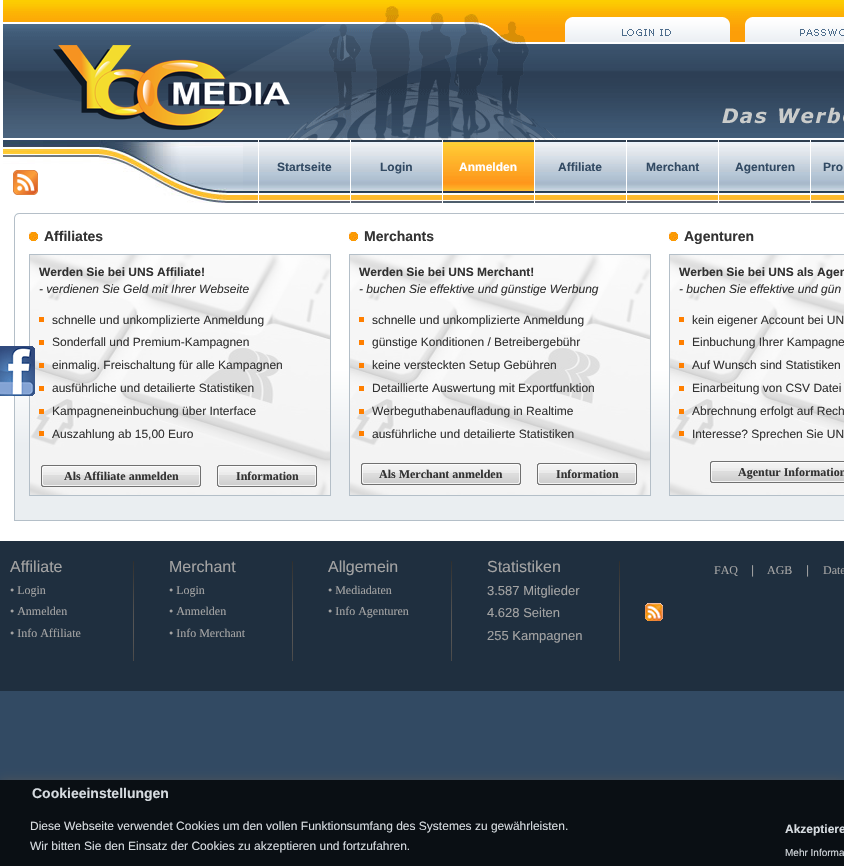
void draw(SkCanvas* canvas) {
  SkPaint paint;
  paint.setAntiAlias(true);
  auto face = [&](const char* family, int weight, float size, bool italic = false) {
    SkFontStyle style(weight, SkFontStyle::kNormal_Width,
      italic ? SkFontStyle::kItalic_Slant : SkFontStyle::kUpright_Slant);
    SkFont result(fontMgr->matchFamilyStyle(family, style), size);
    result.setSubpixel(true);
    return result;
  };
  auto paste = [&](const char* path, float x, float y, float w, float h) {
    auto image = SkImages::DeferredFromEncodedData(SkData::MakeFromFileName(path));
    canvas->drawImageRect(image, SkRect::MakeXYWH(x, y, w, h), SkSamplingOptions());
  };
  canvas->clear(0xff324a63);
  paint.setColor(0xffffffff);
  canvas->drawRect(SkRect::MakeXYWH(0, 0, 844, 213), paint);
  paste("img/1.png", 3, 0, 841, 140);
  paste("img/2.png", 565, 17, 165, 25);
  paste("img/3.png", 622, 29, 49, 7);
  paste("img/4.png", 745, 17, 99, 25);
  paste("img/5.png", 800, 29, 44, 7);
  paste("img/6.png", 53, 45, 237, 85);
  paste("img/7.png", 3, 140, 240, 63);
  paste("img/8.png", 13, 170, 25, 25);
  paste("img/9.png", 243, 140, 15, 63);
  paste("img/10.png", 259, 140, 91, 63);
  paste("img/10.png", 351, 140, 91, 63);
  paste("img/11.png", 443, 140, 91, 63);
  paste("img/10.png", 535, 140, 91, 63);
  paste("img/10.png", 627, 140, 91, 63);
  paste("img/10.png", 719, 140, 91, 63);
  paste("img/12.png", 811, 140, 33, 63);
  canvas->drawRect(SkRect::MakeXYWH(0, 213, 14, 308), paint);
  paste("img/13.png", 14, 213, 830, 5);
  {
    const SkColor colors[] = {0xffffffff, 0xffeaeef1};
    const float stops[] = {0.5f, 0.75f};
    const SkPoint ends[] = {{500, 218}, {500, 520}};
    paint.setShader(SkGradientShader::MakeLinear(ends, colors, stops, 2, SkTileMode::kClamp));
    paint.setAlpha(255);
  }
  canvas->drawRect(SkRect::MakeXYWH(15, 218, 829, 302), paint);
  paint.setShader(nullptr);
  paint.setColor(0xffb4bfc8);
  canvas->drawRect(SkRect::MakeXYWH(14, 520, 830, 1), paint);
  canvas->drawRect(SkRect::MakeXYWH(14, 218, 1, 303), paint);
  paste("img/14.png", 29, 232, 9, 9);
  paste("img/15.png", 30, 255, 300, 240);
  paint.setStroke(true);
  paint.setStrokeWidth(1);
  canvas->drawRect(SkRect::MakeXYWH(29.5f, 254.5f, 301, 241), paint);
  paint.setStroke(false);
  {
    const struct { float x, y, w, h; SkColor color; } items[] = {
      {39, 317, 5, 5, 0xffff7f00},
      {39, 340, 5, 5, 0xffff7f00},
      {39, 363, 5, 5, 0xffff7f00},
      {39, 386, 5, 5, 0xffff7f00},
      {39, 409, 5, 5, 0xffff7f00},
      {39, 431, 5, 5, 0xffff7f00},
    };
    for (auto [x, y, w, h, color] : items) {
      paint.setColor(color);
      canvas->drawRect(SkRect::MakeXYWH(x, y, w, h), paint);
    }
  }
  paste("img/16.png", 41, 465, 160, 22);
  paste("img/17.png", 217, 465, 100, 22);
  paste("img/14.png", 349, 232, 9, 9);
  paste("img/15.png", 350, 255, 300, 240);
  paint.setStroke(true);
  paint.setColor(0xffb4bfc8);
  canvas->drawRect(SkRect::MakeXYWH(349.5f, 254.5f, 301, 241), paint);
  paint.setStroke(false);
  {
    const struct { float x, y, w, h; SkColor color; } items[] = {
      {359, 317, 5, 5, 0xffff7f00},
      {359, 340, 5, 5, 0xffff7f00},
      {359, 363, 5, 5, 0xffff7f00},
      {359, 386, 5, 5, 0xffff7f00},
      {359, 409, 5, 5, 0xffff7f00},
      {359, 431, 5, 5, 0xffff7f00},
    };
    for (auto [x, y, w, h, color] : items) {
      paint.setColor(color);
      canvas->drawRect(SkRect::MakeXYWH(x, y, w, h), paint);
    }
  }
  paste("img/18.png", 361, 463, 160, 22);
  paste("img/17.png", 537, 463, 100, 22);
  paste("img/14.png", 669, 232, 9, 9);
  paste("img/19.png", 670, 255, 174, 240);
  paint.setStroke(true);
  paint.setColor(0xffb4bfc8);
  canvas->drawRect(SkRect::MakeXYWH(669.5f, 254.5f, 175, 241), paint);
  paint.setStroke(false);
  {
    const struct { float x, y, w, h; SkColor color; } items[] = {
      {679, 317, 5, 5, 0xffff7f00},
      {679, 340, 5, 5, 0xffff7f00},
      {679, 363, 5, 5, 0xffff7f00},
      {679, 386, 5, 5, 0xffff7f00},
      {679, 409, 5, 5, 0xffff7f00},
      {679, 431, 5, 5, 0xffff7f00},
    };
    for (auto [x, y, w, h, color] : items) {
      paint.setColor(color);
      canvas->drawRect(SkRect::MakeXYWH(x, y, w, h), paint);
    }
  }
  paste("img/20.png", 710, 461, 134, 22);
  paint.setColor(0xffffffff);
  canvas->drawRect(SkRect::MakeXYWH(0, 521, 844, 20), paint);
  paint.setColor(0xff1f2f3f);
  canvas->drawRect(SkRect::MakeXYWH(0, 541, 844, 150), paint);
  paste("img/21.png", 133, 561, 1, 100);
  paste("img/21.png", 292, 561, 1, 100);
  paste("img/21.png", 451, 561, 1, 100);
  paste("img/21.png", 619, 561, 1, 100);
  paste("img/22.png", 645, 603, 18, 18);
  paste("img/23.png", 0, 346, 35, 50);
  paint.setColor(0xff4e5358);
  paint.setMaskFilter(SkMaskFilter::MakeBlur(kNormal_SkBlurStyle, 5));
  canvas->drawRect(SkRect::MakeXYWH(0, 780, 844, 86), paint);
  paint.setMaskFilter(nullptr);
  paint.setColor(0xff0a0f14);
  canvas->drawRect(SkRect::MakeXYWH(0, 780, 844, 86), paint);
  auto f0 = face("Liberation Sans", 700, 12);
  paint.setColor(0xff324a63);
  canvas->drawString("Startseite", 277, 171, f0, paint);
  canvas->drawString("Login", 380, 171, f0, paint);
  paint.setColor(0xffffffff);
  canvas->drawString("Anmelden", 459, 171, f0, paint);
  paint.setColor(0xff324a63);
  {
    const struct { const char* s; float x, y; } items[] = {
      {"Affiliate", 558, 171},
      {"Merchant", 646, 171},
      {"Agenturen", 735, 171},
      {"Pro", 823, 171},
    };
    for (auto [s, x, y] : items) {
      canvas->drawString(s, x, y, f0, paint);
    }
  }
  auto f1 = face("Liberation Sans", 700, 14);
  paint.setColor(0xff333333);
  canvas->drawString("Affiliates", 44, 241, f1, paint);
  canvas->drawString("Werden Sie bei UNS Affiliate!", 39, 276, f0, paint);
  auto f2 = face("Liberation Sans", 400, 12, true);
  canvas->drawString("- verdienen Sie Geld mit Ihrer Webseite", 39, 293, f2, paint);
  auto f3 = face("Liberation Sans", 400, 12);
  {
    const struct { const char* s; float x, y; } items[] = {
      {"schnelle und unkomplizierte Anmeldung", 52, 324},
      {"Sonderfall und Premium-Kampagnen", 52, 346},
      {"einmalig. Freischaltung für alle Kampagnen", 52, 369},
      {"ausführliche und detailierte Statistiken", 52, 392},
      {"Kampagneneinbuchung über Interface", 52, 415},
      {"Auszahlung ab 15,00 Euro", 52, 438},
    };
    for (auto [s, x, y] : items) {
      canvas->drawString(s, x, y, f3, paint);
    }
  }
  auto f4 = face("Liberation Serif", 700, 12);
  canvas->drawString("Als Affiliate anmelden", 64, 480, f4, paint);
  canvas->drawString("Information", 236, 480, f4, paint);
  canvas->drawString("Merchants", 364, 241, f1, paint);
  canvas->drawString("Werden Sie bei UNS Merchant!", 359, 276, f0, paint);
  canvas->drawString("- buchen Sie effektive und günstige Werbung", 359, 293, f2, paint);
  {
    const struct { const char* s; float x, y; } items[] = {
      {"schnelle und unkomplizierte Anmeldung", 372, 324},
      {"günstige Konditionen / Betreibergebühr", 372, 346},
      {"keine versteckten Setup Gebühren", 372, 369},
      {"Detaillierte Auswertung mit Exportfunktion", 372, 392},
      {"Werbeguthabenaufladung in Realtime", 372, 415},
      {"ausführliche und detailierte Statistiken", 372, 438},
    };
    for (auto [s, x, y] : items) {
      canvas->drawString(s, x, y, f3, paint);
    }
  }
  canvas->drawString("Als Merchant anmelden", 379, 478, f4, paint);
  canvas->drawString("Information", 556, 478, f4, paint);
  canvas->drawString("Agenturen", 684, 241, f1, paint);
  canvas->drawString("Werben Sie bei UNS als Agen", 679, 276, f0, paint);
  canvas->drawString("- buchen Sie effektive und gün", 679, 293, f2, paint);
  {
    const struct { const char* s; float x, y; } items[] = {
      {"kein eigener Account bei UN", 692, 324},
      {"Einbuchung Ihrer Kampagne", 692, 346},
      {"Auf Wunsch sind Statistiken", 692, 369},
      {"Einarbeitung von CSV Datei", 692, 392},
      {"Abrechnung erfolgt auf Rech", 692, 415},
      {"Interesse? Sprechen Sie UN", 692, 438},
    };
    for (auto [s, x, y] : items) {
      canvas->drawString(s, x, y, f3, paint);
    }
  }
  canvas->drawString("Agentur Information", 738, 476, f4, paint);
  auto f5 = face("Liberation Sans", 400, 16);
  paint.setColor(0xffa3a3a3);
  canvas->drawString("Affiliate", 10, 572, f5, paint);
  auto f6 = face("Liberation Serif", 400, 12);
  {
    const struct { const char* s; float x, y; } items[] = {
      {"• Login", 10, 594},
      {"• Anmelden", 10, 615},
      {"• Info Affiliate", 10, 637},
    };
    for (auto [s, x, y] : items) {
      canvas->drawString(s, x, y, f6, paint);
    }
  }
  canvas->drawString("Merchant", 169, 572, f5, paint);
  {
    const struct { const char* s; float x, y; } items[] = {
      {"• Login", 169, 594},
      {"• Anmelden", 169, 615},
      {"• Info Merchant", 169, 637},
    };
    for (auto [s, x, y] : items) {
      canvas->drawString(s, x, y, f6, paint);
    }
  }
  canvas->drawString("Allgemein", 328, 572, f5, paint);
  canvas->drawString("• Mediadaten", 328, 594, f6, paint);
  canvas->drawString("• Info Agenturen", 328, 615, f6, paint);
  canvas->drawString("Statistiken", 487, 572, f5, paint);
  auto f7 = face("Liberation Sans", 400, 13);
  {
    const struct { const char* s; float x, y; } items[] = {
      {"3.587 Mitglieder", 487, 595},
      {"4.628 Seiten", 487, 617},
      {"255 Kampagnen", 487, 640},
    };
    for (auto [s, x, y] : items) {
      canvas->drawString(s, x, y, f7, paint);
    }
  }
  canvas->drawString("FAQ", 714, 574, f6, paint);
  canvas->drawString("|", 751, 574, f3, paint);
  canvas->drawString("AGB", 767, 574, f6, paint);
  canvas->drawString("|", 806, 574, f3, paint);
  canvas->drawString("Date", 823, 574, f6, paint);
  paint.setColor(0xffd6dbe0);
  canvas->drawString("Cookieeinstellungen", 32, 798, f1, paint);
  canvas->drawString("Diese Webseite verwendet Cookies um den vollen Funktionsumfang des Systemes zu gewährleisten.", 30, 830, f3, paint);
  canvas->drawString("Wir bitten Sie den Einsatz der Cookies zu akzeptieren und fortzufahren.", 30, 850, f3, paint);
  canvas->drawString("Akzeptiere", 785, 833, f0, paint);
  auto f8 = face("Liberation Sans", 400, 10);
  canvas->drawString("Mehr Informa", 785, 856, f8, paint);
}
